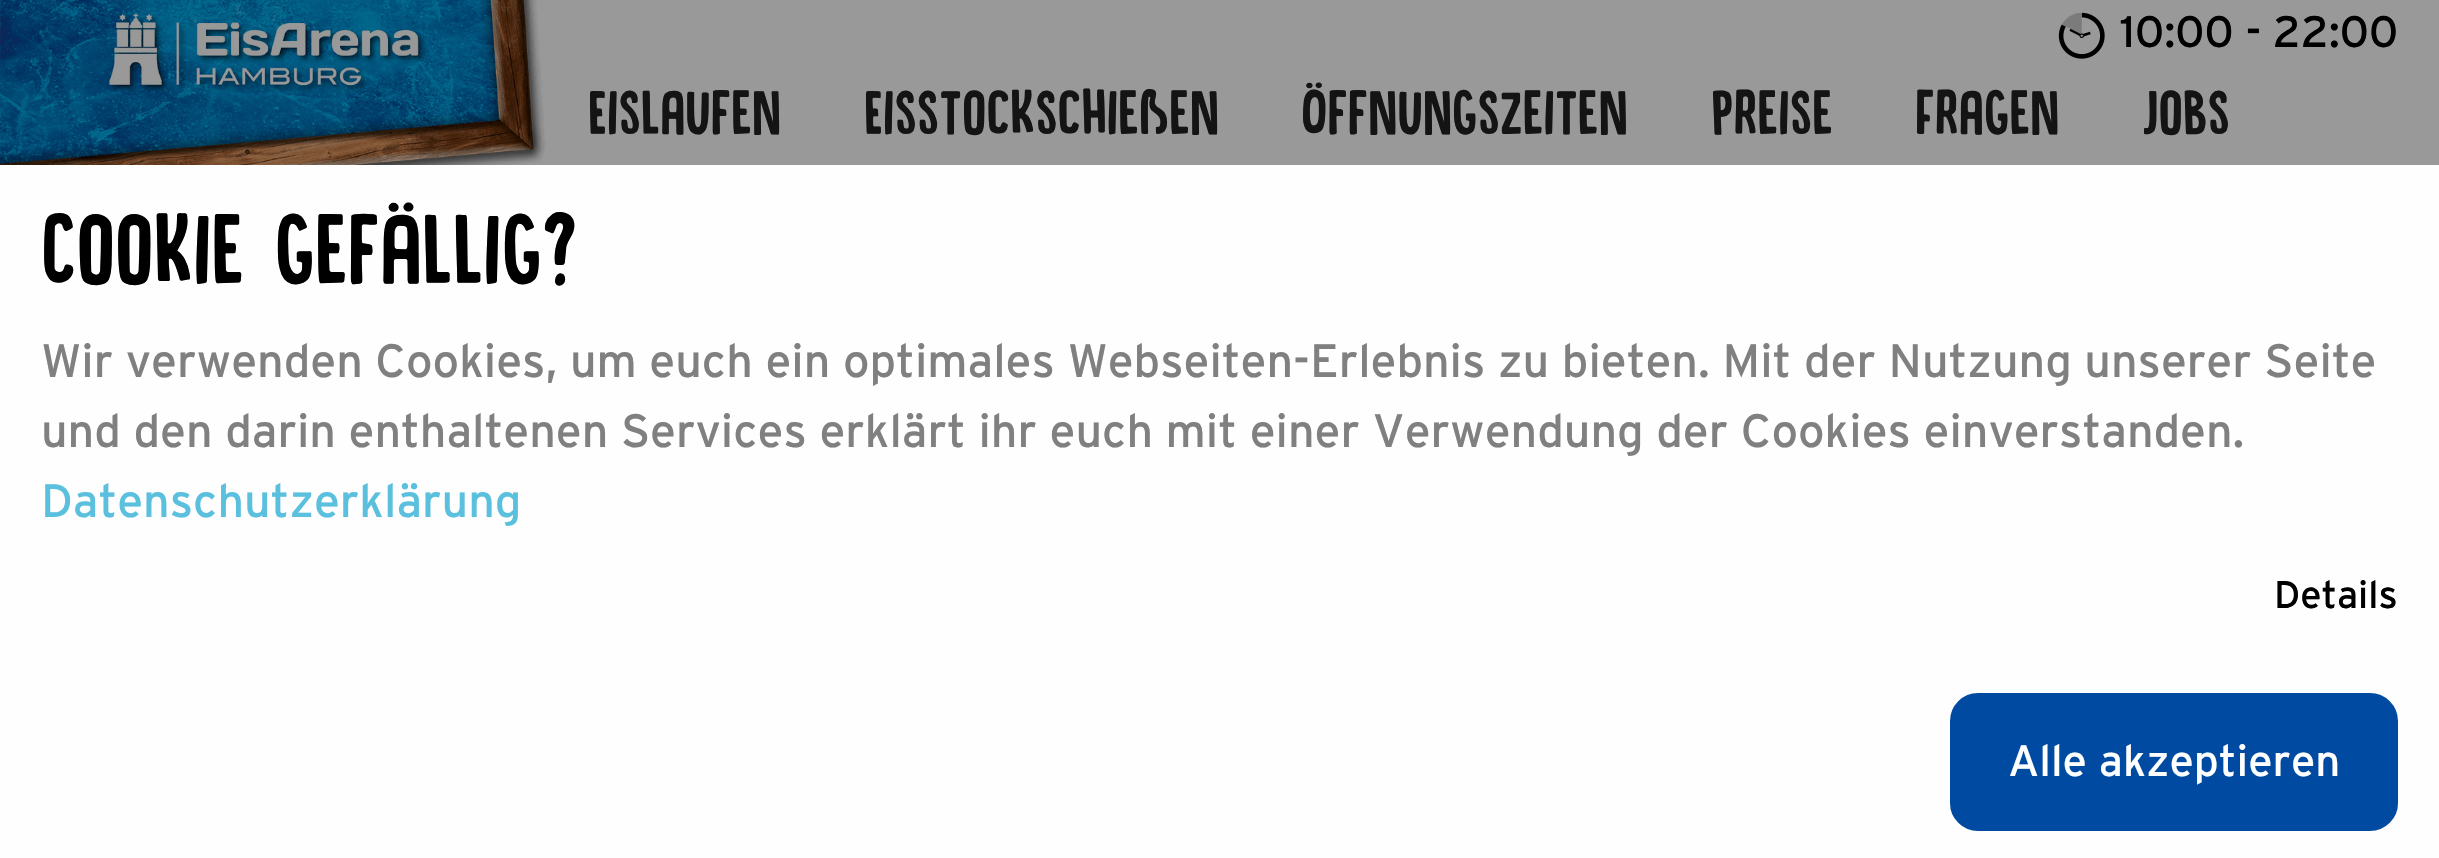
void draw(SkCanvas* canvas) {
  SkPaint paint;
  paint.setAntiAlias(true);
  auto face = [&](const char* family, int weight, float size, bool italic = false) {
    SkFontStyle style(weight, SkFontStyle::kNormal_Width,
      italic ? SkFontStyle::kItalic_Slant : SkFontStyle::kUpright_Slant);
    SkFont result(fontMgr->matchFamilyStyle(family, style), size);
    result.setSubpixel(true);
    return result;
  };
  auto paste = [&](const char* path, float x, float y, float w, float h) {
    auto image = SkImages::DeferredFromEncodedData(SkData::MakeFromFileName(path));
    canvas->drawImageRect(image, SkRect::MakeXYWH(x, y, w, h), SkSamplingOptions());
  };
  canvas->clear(0xff999999);
  paste("img/1.png", 0, 0, 546, 165);
  paste("img/2.png", 2058, 12, 47, 47);
  paint.setColor(0xfffefefe);
  canvas->drawRect(SkRect::MakeXYWH(0, 165, 2439, 693), paint);
  paint.setColor(0xff004ba1);
  canvas->drawRoundRect(SkRect::MakeXYWH(1951.5f, 694.5f, 445, 135), 26.5f, 26.5f, paint);
  paint.setStroke(true);
  paint.setStrokeWidth(3);
  canvas->drawRoundRect(SkRect::MakeXYWH(1951.5f, 694.5f, 445, 135), 26.5f, 26.5f, paint);
  auto f0 = face("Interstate", 400, 44);
  paint.setStroke(false);
  paint.setColor(0xff000000);
  canvas->drawString("10:00 - 22:00", 2120, 47, f0, paint);
  auto f1 = face("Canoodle", 400, 66);
  paint.setColor(0xff141414);
  {
    const struct { const char* s; float x, y; } items[] = {
      {"Eislaufen", 588, 135},
      {"Eisstockschießen", 864, 135},
      {"Öffnungszeiten", 1301, 135},
      {"Preise", 1711, 135},
      {"Fragen", 1915, 135},
      {"Jobs", 2142, 135},
    };
    for (auto [s, x, y] : items) {
      canvas->drawString(s, x, y, f1, paint);
    }
  }
  auto f2 = face("Canoodle", 400, 104.5f);
  paint.setColor(0xff000000);
  canvas->drawString("Cookie gefällig?", 41, 285, f2, paint);
  auto f3 = face("Interstate", 400, 46.75f);
  paint.setColor(0xff808080);
  canvas->drawString("Wir verwenden Cookies, um euch ein optimales Webseiten-Erlebnis zu bieten. Mit der Nutzung unserer Seite", 41, 377, f3, paint);
  canvas->drawString("und den darin enthaltenen Services erklärt ihr euch mit einer Verwendung der Cookies einverstanden.", 41, 447, f3, paint);
  paint.setColor(0xff5bc0de);
  canvas->drawString("Datenschutzerklärung", 41, 517, f3, paint);
  auto f4 = face("Interstate", 400, 38.5f);
  paint.setColor(0xff000000);
  canvas->drawString("Details", 2274, 608, f4, paint);
  paint.setColor(0xffffffff);
  canvas->drawString("Alle akzeptieren", 2008, 776, f0, paint);
}
